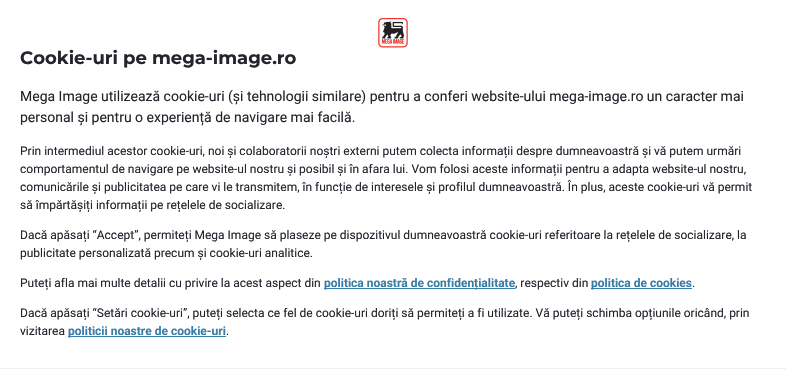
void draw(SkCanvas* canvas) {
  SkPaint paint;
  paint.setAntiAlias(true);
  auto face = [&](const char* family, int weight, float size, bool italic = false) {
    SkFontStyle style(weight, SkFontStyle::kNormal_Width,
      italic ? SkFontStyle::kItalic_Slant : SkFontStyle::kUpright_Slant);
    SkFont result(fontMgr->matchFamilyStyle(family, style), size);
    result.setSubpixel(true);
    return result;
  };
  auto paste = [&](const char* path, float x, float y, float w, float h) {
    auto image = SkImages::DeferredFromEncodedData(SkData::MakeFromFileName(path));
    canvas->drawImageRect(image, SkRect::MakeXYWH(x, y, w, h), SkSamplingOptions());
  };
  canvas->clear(0xffffffff);
  paste("img/1.png", 378, 18, 30, 30);
  {
    const struct { float x, y, w, h; SkColor color; } items[] = {
      {324, 288, 191, 1, 0xff377da8},
      {591, 288, 101, 1, 0xff377da8},
      {68, 336, 158, 1, 0xff377da8},
      {0, 368, 786, 1, 0xffefefef},
    };
    for (auto [x, y, w, h, color] : items) {
      paint.setColor(color);
      canvas->drawRect(SkRect::MakeXYWH(x, y, w, h), paint);
    }
  }
  auto f0 = face("Montserrat", 100, 18);
  paint.setColor(0xff25232c);
  canvas->drawString("Cookie-uri pe mega-image.ro", 20, 64, f0, paint);
  auto f1 = face("Roboto", 400, 14);
  canvas->drawString("Mega Image utilizează cookie-uri (și tehnologii similare) pentru a conferi website-ului mega-image.ro un caracter mai", 20, 101, f1, paint);
  canvas->drawString("personal și pentru o experiență de navigare mai facilă.", 20, 122, f1, paint);
  auto f2 = face("Roboto", 400, 12);
  {
    const struct { const char* s; float x, y; } items[] = {
      {"Prin intermediul acestor cookie-uri, noi și colaboratorii noștri externi putem colecta informații despre dumneavoastră și vă putem urmări", 20, 155},
      {"comportamentul de navigare pe website-ul nostru și posibil și în afara lui. Vom folosi aceste informații pentru a adapta website-ul nostru,", 20, 173},
      {"comunicările și publicitatea pe care vi le transmitem, în funcție de interesele și profilul dumneavoastră. În plus, aceste cookie-uri vă permit", 20, 191},
      {"să împărtășiți informații pe rețelele de socializare.", 20, 209},
      {"Dacă apăsați “Accept”, permiteți Mega Image să plaseze pe dispozitivul dumneavoastră cookie-uri referitoare la rețelele de socializare, la", 20, 239},
      {"publicitate personalizată precum și cookie-uri analitice.", 20, 257},
      {"Puteți afla mai multe detalii cu privire la acest aspect din", 20, 287},
    };
    for (auto [s, x, y] : items) {
      canvas->drawString(s, x, y, f2, paint);
    }
  }
  auto f3 = face("Roboto", 700, 12);
  paint.setColor(0xff377da8);
  canvas->drawString("politica noastră de confidențialitate", 324, 287, f3, paint);
  paint.setColor(0xff25232c);
  canvas->drawString(", respectiv din", 515, 287, f2, paint);
  paint.setColor(0xff377da8);
  canvas->drawString("politica de cookies", 591, 287, f3, paint);
  paint.setColor(0xff25232c);
  {
    const struct { const char* s; float x, y; } items[] = {
      {".", 692, 287},
      {"Dacă apăsați “Setări cookie-uri”, puteți selecta ce fel de cookie-uri doriți să permiteți a fi utilizate. Vă puteți schimba opțiunile oricând, prin", 20, 317},
      {"vizitarea", 20, 335},
    };
    for (auto [s, x, y] : items) {
      canvas->drawString(s, x, y, f2, paint);
    }
  }
  paint.setColor(0xff377da8);
  canvas->drawString("politicii noastre de cookie-uri", 68, 335, f3, paint);
  paint.setColor(0xff25232c);
  canvas->drawString(".", 226, 335, f2, paint);
}
